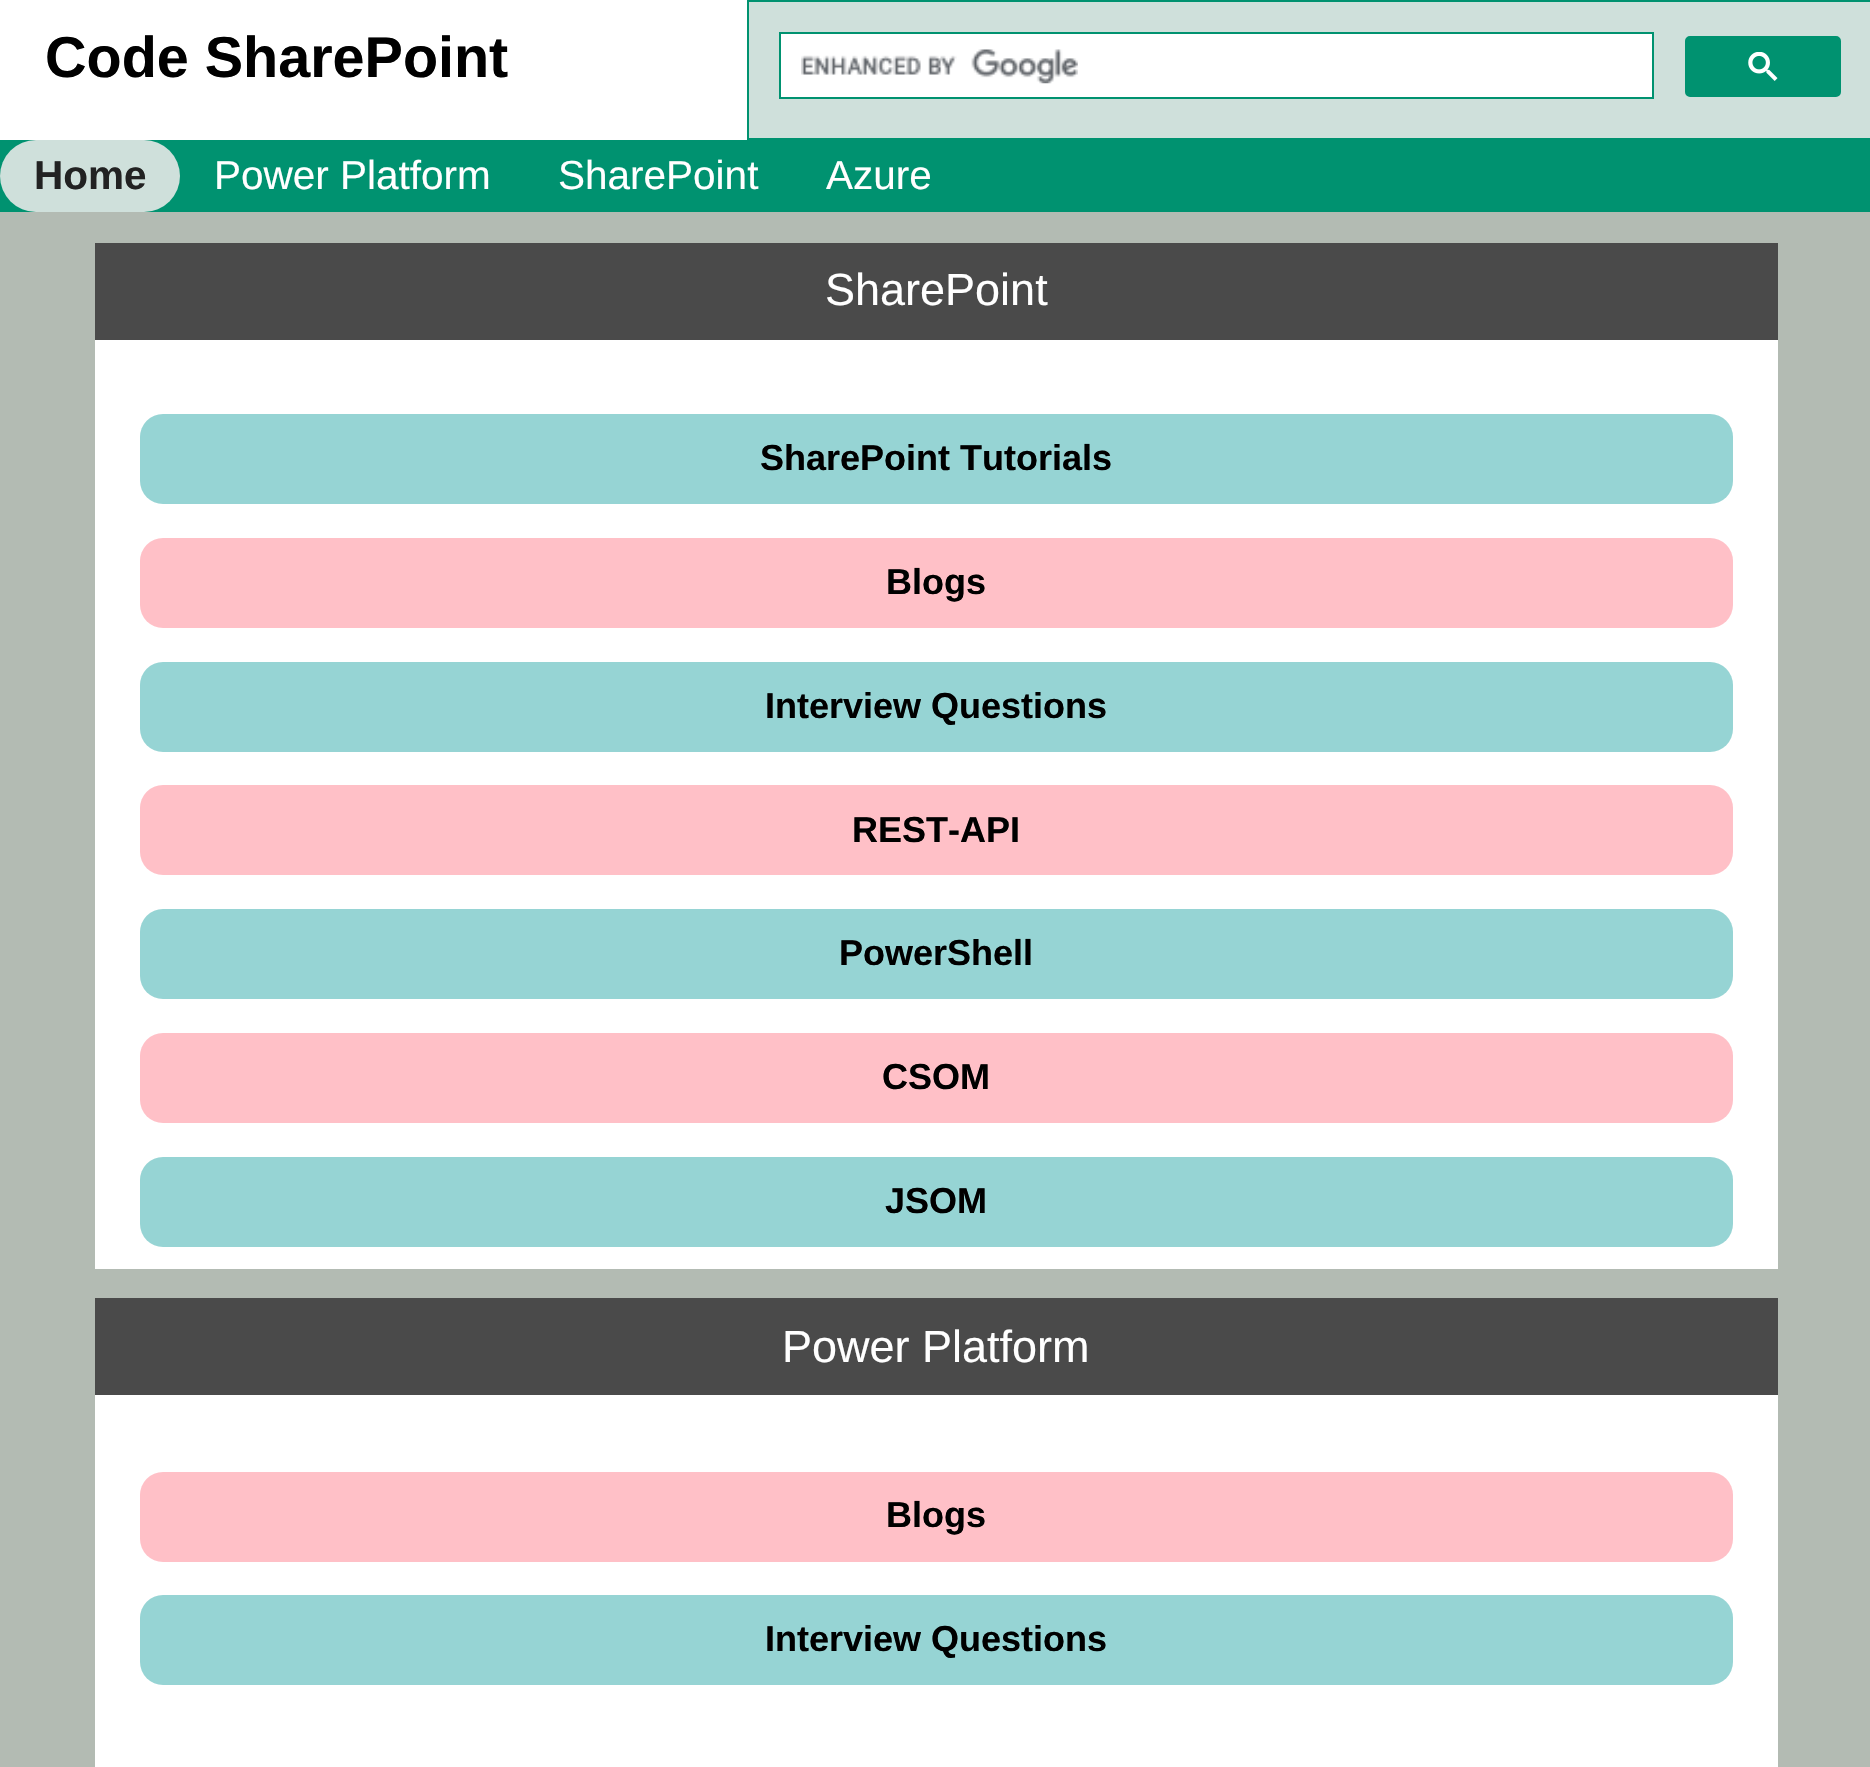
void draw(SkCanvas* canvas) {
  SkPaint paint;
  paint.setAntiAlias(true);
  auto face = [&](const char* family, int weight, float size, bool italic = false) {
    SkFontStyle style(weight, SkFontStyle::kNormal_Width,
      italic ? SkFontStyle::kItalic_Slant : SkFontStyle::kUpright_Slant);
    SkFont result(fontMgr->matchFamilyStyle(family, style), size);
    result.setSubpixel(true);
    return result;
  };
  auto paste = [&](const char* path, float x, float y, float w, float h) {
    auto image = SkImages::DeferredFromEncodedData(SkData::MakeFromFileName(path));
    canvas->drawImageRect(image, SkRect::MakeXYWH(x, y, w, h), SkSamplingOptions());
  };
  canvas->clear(0xffb3bbb3);
  paint.setColor(0xffffffff);
  canvas->drawRect(SkRect::MakeXYWH(0, 0, 747, 140), paint);
  paint.setColor(0xffcfe0db);
  canvas->drawRect(SkRect::MakeXYWH(748, 1, 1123, 138), paint);
  paint.setStroke(true);
  paint.setStrokeWidth(2);
  paint.setColor(0xff009270);
  canvas->drawRect(SkRect::MakeXYWH(748, 1, 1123, 138), paint);
  paint.setStroke(false);
  paint.setColor(0xffffffff);
  canvas->drawRect(SkRect::MakeXYWH(780, 33, 873, 65), paint);
  paint.setStroke(true);
  paint.setColor(0xff009270);
  canvas->drawRect(SkRect::MakeXYWH(780, 33, 873, 65), paint);
  paste("img/1.png", 801, 49, 277, 35);
  paint.setStroke(false);
  canvas->drawRoundRect(SkRect::MakeXYWH(1686, 37, 154, 59), 4, 4, paint);
  paint.setStroke(true);
  canvas->drawRoundRect(SkRect::MakeXYWH(1686, 37, 154, 59), 4, 4, paint);
  paste("img/2.png", 1748, 52, 30, 29);
  paint.setStroke(false);
  canvas->drawRect(SkRect::MakeXYWH(0, 140, 1870, 72), paint);
  paint.setColor(0xffcfe0db);
  canvas->drawRoundRect(SkRect::MakeXYWH(0, 140, 180, 72), 36, 36, paint);
  paint.setColor(0xffffffff);
  canvas->drawRect(SkRect::MakeXYWH(95, 340, 1683, 929), paint);
  paint.setColor(0xff4a4a4a);
  canvas->drawRect(SkRect::MakeXYWH(95, 243, 1683, 97), paint);
  paint.setColor(0xff96d4d4);
  canvas->drawRoundRect(SkRect::MakeXYWH(140, 414, 1593, 90), 23, 23, paint);
  paint.setColor(0xffffc0c7);
  canvas->drawRoundRect(SkRect::MakeXYWH(140, 538, 1593, 90), 23, 23, paint);
  paint.setColor(0xff96d4d4);
  canvas->drawRoundRect(SkRect::MakeXYWH(140, 662, 1593, 90), 23, 23, paint);
  paint.setColor(0xffffc0c7);
  canvas->drawRoundRect(SkRect::MakeXYWH(140, 785, 1593, 90), 23, 23, paint);
  paint.setColor(0xff96d4d4);
  canvas->drawRoundRect(SkRect::MakeXYWH(140, 909, 1593, 90), 23, 23, paint);
  paint.setColor(0xffffc0c7);
  canvas->drawRoundRect(SkRect::MakeXYWH(140, 1033, 1593, 90), 23, 23, paint);
  paint.setColor(0xff96d4d4);
  canvas->drawRoundRect(SkRect::MakeXYWH(140, 1157, 1593, 90), 23, 23, paint);
  paint.setColor(0xffffffff);
  canvas->drawRect(SkRect::MakeXYWH(95, 1395, 1683, 372), paint);
  paint.setColor(0xff4a4a4a);
  canvas->drawRect(SkRect::MakeXYWH(95, 1298, 1683, 97), paint);
  paint.setColor(0xffffc0c7);
  canvas->drawRoundRect(SkRect::MakeXYWH(140, 1472, 1593, 90), 23, 23, paint);
  paint.setColor(0xff96d4d4);
  canvas->drawRoundRect(SkRect::MakeXYWH(140, 1595, 1593, 90), 23, 23, paint);
  auto f0 = face("Liberation Sans", 700, 57.5f);
  paint.setColor(0xff000000);
  canvas->drawString("Code SharePoint", 45, 77, f0, paint);
  auto f1 = face("Liberation Sans", 700, 40.5f);
  paint.setColor(0xff222222);
  canvas->drawString("Home", 34, 189, f1, paint);
  auto f2 = face("Liberation Sans", 400, 40.5f);
  paint.setColor(0xffffffff);
  {
    const struct { const char* s; float x, y; } items[] = {
      {"Power Platform", 214, 189},
      {"SharePoint", 558, 189},
      {"Azure", 826, 189},
    };
    for (auto [s, x, y] : items) {
      canvas->drawString(s, x, y, f2, paint);
    }
  }
  auto f3 = face("Liberation Sans", 400, 45);
  canvas->drawString("SharePoint", 825, 305, f3, paint);
  auto f4 = face("Liberation Sans", 700, 36);
  paint.setColor(0xff000000);
  {
    const struct { const char* s; float x, y; } items[] = {
      {"SharePoint Tutorials", 760, 470},
      {"Blogs", 886, 594},
      {"Interview Questions", 765, 718},
      {"REST-API", 852, 842},
      {"PowerShell", 839, 965},
      {"CSOM", 882, 1089},
      {"JSOM", 885, 1213},
    };
    for (auto [s, x, y] : items) {
      canvas->drawString(s, x, y, f4, paint);
    }
  }
  paint.setColor(0xffffffff);
  canvas->drawString("Power Platform", 782, 1362, f3, paint);
  paint.setColor(0xff000000);
  canvas->drawString("Blogs", 886, 1527, f4, paint);
  canvas->drawString("Interview Questions", 765, 1651, f4, paint);
}
